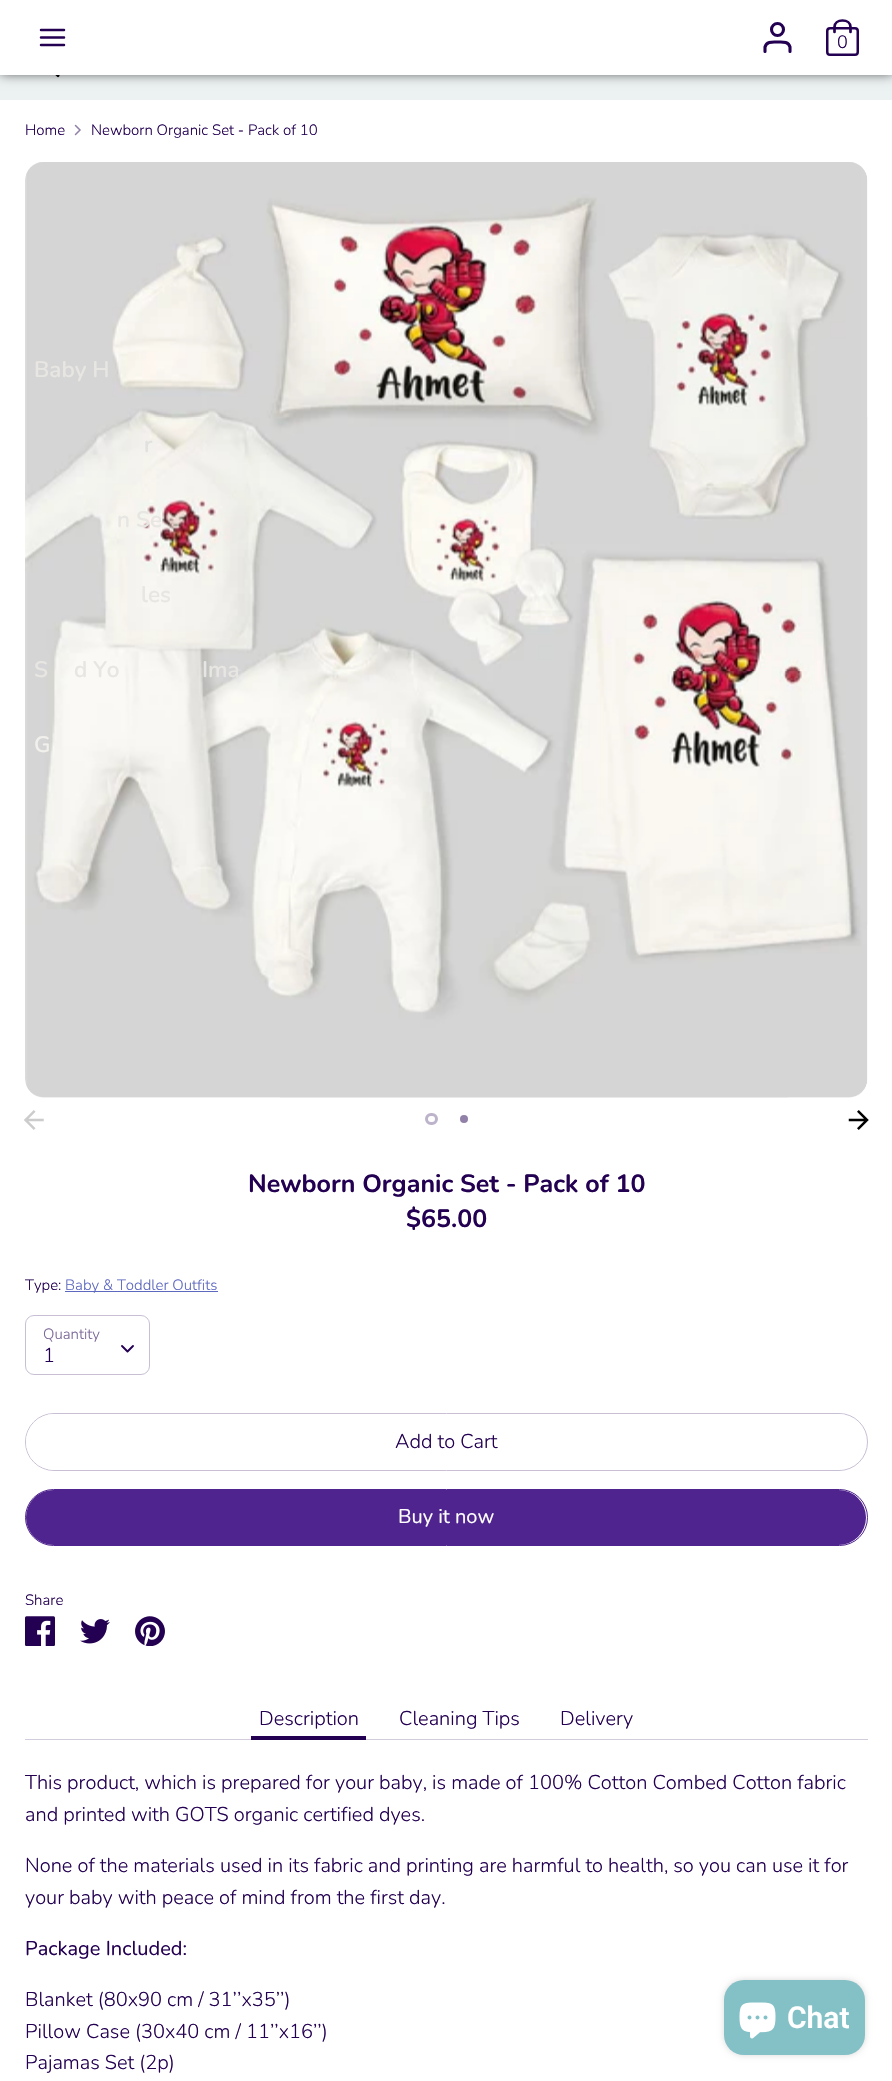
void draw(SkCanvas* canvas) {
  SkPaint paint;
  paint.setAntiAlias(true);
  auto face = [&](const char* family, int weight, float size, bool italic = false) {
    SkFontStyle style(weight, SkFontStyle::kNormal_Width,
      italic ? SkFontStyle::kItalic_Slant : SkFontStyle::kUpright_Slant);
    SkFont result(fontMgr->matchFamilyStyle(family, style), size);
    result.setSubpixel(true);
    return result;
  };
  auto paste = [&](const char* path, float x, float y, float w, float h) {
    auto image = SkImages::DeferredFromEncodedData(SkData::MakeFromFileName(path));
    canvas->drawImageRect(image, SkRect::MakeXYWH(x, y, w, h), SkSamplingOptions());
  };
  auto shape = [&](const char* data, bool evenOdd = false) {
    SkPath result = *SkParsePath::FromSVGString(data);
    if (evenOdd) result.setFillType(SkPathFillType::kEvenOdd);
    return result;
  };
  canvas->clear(0xffffffff);
  paint.setColor(0xffecf1f2);
  canvas->drawRect(SkRect::MakeXYWH(0, 75, 892, 25), paint);
  paint.setStroke(true);
  paint.setStrokeWidth(3.1f);
  paint.setStrokeCap(SkPaint::kRound_Cap);
  paint.setColor(0xff000000);
  canvas->drawPath(shape("M58 75.5L49.5 67"), paint);
  paint.setStroke(false);
  paint.setColor(0xbf000000);
  paint.setMaskFilter(SkMaskFilter::MakeBlur(kNormal_SkBlurStyle, 6));
  canvas->drawRect(SkRect::MakeXYWH(0, -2, 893, 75), paint);
  paint.setMaskFilter(nullptr);
  paint.setColor(0xffffffff);
  canvas->drawRect(SkRect::MakeXYWH(0, 0, 892, 75), paint);
  paint.setStroke(true);
  paint.setStrokeWidth(2.5f);
  paint.setColor(0xff230051);
  canvas->drawPath(shape("M41 37.5H64M41 30H64M41 45H64"), paint);
  paint.setStrokeWidth(3.1f);
  canvas->drawPath(shape("M790 51.5V47C788.5 41 782 42 777.5 42C773 42 766.5 41 765 47V51.5"), paint);
  paint.setStrokeCap(SkPaint::kButt_Cap);
  canvas->drawCircle(777.5f, 29.5f, 6, paint);
  paint.setStrokeWidth(2.5f);
  canvas->drawRoundRect(SkRect::MakeXYWH(827.25f, 28.25f, 30.5f, 26.5f), 2.75f, 2.75f, paint);
  paint.setStrokeWidth(2.7f);
  paint.setStrokeCap(SkPaint::kRound_Cap);
  canvas->drawPath(shape("M834.5 32V27C834.5 23 838 20.5 842.5 20.5C847 20.5 850.5 23 850.5 27V32"), paint);
  paint.setStrokeWidth(1.5f);
  paint.setColor(0xff9180a8);
  canvas->drawPath(shape("M75.5 134.5L80 130L75.5 125.5"), paint);
  paste("img/1.png", 25, 162, 843, 936);
  paste("img/2.png", 24, 1110, 20, 20);
  paste("img/3.png", 848, 1110, 21, 20);
  paint.setStrokeWidth(3);
  paint.setStrokeCap(SkPaint::kButt_Cap);
  paint.setColor(0xffbdb3cb);
  canvas->drawRoundRect(SkRect::MakeXYWH(426.5f, 1114.5f, 10, 9), 4.5f, 4.5f, paint);
  paint.setStroke(false);
  paint.setColor(0xff9180a8);
  canvas->drawCircle(464, 1119, 4, paint);
  paint.setColor(0xff5d68bf);
  canvas->drawRect(SkRect::MakeXYWH(65, 1291, 153, 1), paint);
  paint.setStroke(true);
  paint.setStrokeWidth(1);
  paint.setColor(0xffc8bfd4);
  canvas->drawRoundRect(SkRect::MakeXYWH(25.5f, 1315.5f, 124, 59), 8.5f, 8.5f, paint);
  paint.setStrokeWidth(1.9f);
  paint.setStrokeCap(SkPaint::kRound_Cap);
  paint.setStrokeJoin(SkPaint::kRound_Join);
  paint.setColor(0xff230051);
  canvas->drawPath(shape("M122 1346L127.5 1351.5L133 1346"), paint);
  paint.setStrokeWidth(1);
  paint.setStrokeCap(SkPaint::kButt_Cap);
  paint.setStrokeJoin(SkPaint::kMiter_Join);
  paint.setColor(0xffc8bfd4);
  canvas->drawRoundRect(SkRect::MakeXYWH(25.5f, 1413.5f, 842, 57), 28.5f, 28.5f, paint);
  paint.setStroke(false);
  paint.setColor(0xffffffff);
  canvas->drawRoundRect(SkRect::MakeXYWH(26, 1414, 840, 56), 28, 28, paint);
  paint.setStroke(true);
  paint.setColor(0xff50248f);
  canvas->drawRoundRect(SkRect::MakeXYWH(25.5f, 1489.5f, 842, 56), 28, 28, paint);
  paint.setStroke(false);
  canvas->drawRoundRect(SkRect::MakeXYWH(26, 1490, 840, 55), 27.5f, 27.5f, paint);
  paste("img/4.png", 25, 1616, 30, 30);
  paste("img/5.png", 80, 1619, 30, 25);
  paste("img/6.png", 135, 1616, 30, 30);
  paint.setColor(0xffd3ccdc);
  canvas->drawRect(SkRect::MakeXYWH(25, 1739, 843, 1), paint);
  paint.setColor(0xff230051);
  canvas->drawRect(SkRect::MakeXYWH(251, 1736, 115, 4), paint);
  paint.setColor(0x26000000);
  paint.setMaskFilter(SkMaskFilter::MakeBlur(kNormal_SkBlurStyle, 3));
  canvas->drawRoundRect(SkRect::MakeXYWH(724, 1980, 141, 75), 20, 20, paint);
  paint.setMaskFilter(nullptr);
  paint.setColor(0xff84c1c7);
  canvas->drawRoundRect(SkRect::MakeXYWH(724, 1980, 141, 75), 20, 20, paint);
  paste("img/7.png", 739, 2002, 37, 37);
  auto f0 = face("Nunito", 300, 18);
  paint.setColor(0xff230051);
  canvas->drawString("0", 837, 48, f0, paint);
  auto f1 = face("Nunito", 600, 22.5f);
  paint.setColor(0xffe8e6e2);
  canvas->drawString("Baby H", 34, 377, f1, paint);
  paint.setColor(0xffe1e1df);
  canvas->drawString("r", 144, 452, f1, paint);
  paint.setColor(0xffe8e6e2);
  {
    const struct { const char* s; float x, y; } items[] = {
      {"n Se", 117, 527},
      {"les", 141, 602},
      {"S", 34, 677},
      {"d Yo", 74, 677},
      {"Ima", 202, 677},
    };
    for (auto [s, x, y] : items) {
      canvas->drawString(s, x, y, f1, paint);
    }
  }
  paint.setColor(0xfff1f0ec);
  canvas->drawString("G", 34, 752, f1, paint);
  auto f2 = face("Nunito", 300, 15);
  paint.setColor(0xff230051);
  canvas->drawString("Home", 25, 135, f2, paint);
  canvas->drawString("Newborn Organic Set - Pack of 10", 91, 135, f2, paint);
  auto f3 = face("Nunito", 700, 25);
  canvas->drawString("Newborn Organic Set - Pack of 10", 248, 1192, f3, paint);
  canvas->drawString("$65.00", 406, 1227, f3, paint);
  canvas->drawString("Type:", 25, 1290, f2, paint);
  paint.setColor(0xff5d68bf);
  canvas->drawString("Baby & Toddler Outfits", 65, 1290, f2, paint);
  paint.setColor(0xff7b6697);
  canvas->drawString("Quantity", 43, 1339, f2, paint);
  auto f4 = face("Nunito", 300, 20);
  paint.setColor(0xff230051);
  canvas->drawString("1", 43, 1362, f4, paint);
  canvas->drawString("Add to Cart", 395, 1448, f4, paint);
  auto f5 = face("Nunito", 400, 20);
  paint.setColor(0xffffffff);
  canvas->drawString("Buy it now", 398, 1523, f5, paint);
  paint.setColor(0xff230051);
  canvas->drawString("Share", 25, 1605, f2, paint);
  {
    const struct { const char* s; float x, y; } items[] = {
      {"Description", 259, 1725},
      {"Cleaning Tips", 399, 1725},
      {"Delivery", 560, 1725},
      {"This product, which is prepared for your baby, is made of 100% Cotton Combed Cotton fabric", 25, 1789},
      {"and printed with GOTS organic certified dyes.", 25, 1821},
      {"None of the materials used in its fabric and printing are harmful to health, so you can use it for", 25, 1872},
      {"your baby with peace of mind from the first day.", 25, 1904},
    };
    for (auto [s, x, y] : items) {
      canvas->drawString(s, x, y, f4, paint);
    }
  }
  canvas->drawString("Package Included:", 25, 1955, f5, paint);
  {
    const struct { const char* s; float x, y; } items[] = {
      {"Blanket (80x90 cm / 31’’x35’’)", 25, 2006},
      {"Pillow Case (30x40 cm / 11’’x16’’)", 25, 2038},
      {"Pajamas Set (2p)", 25, 2069},
    };
    for (auto [s, x, y] : items) {
      canvas->drawString(s, x, y, f4, paint);
    }
  }
  auto f6 = face("Roboto", 600, 30);
  paint.setColor(0xffffffff);
  canvas->drawString("Chat", 787, 2028, f6, paint);
}
